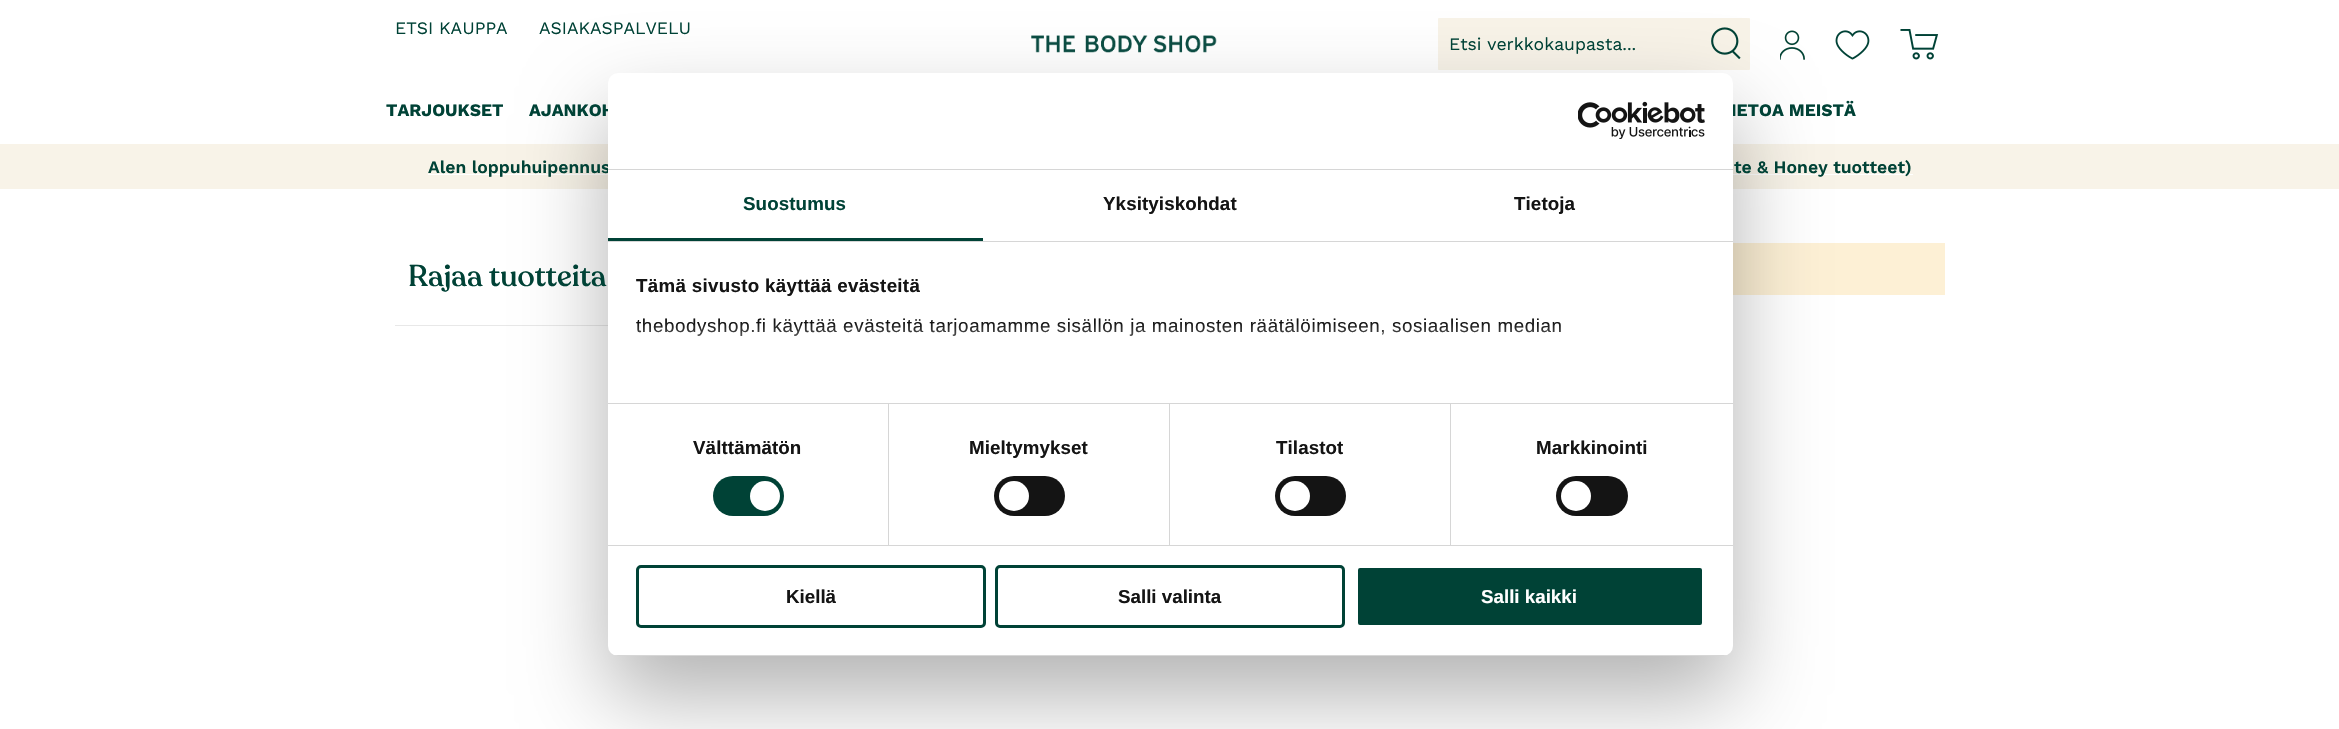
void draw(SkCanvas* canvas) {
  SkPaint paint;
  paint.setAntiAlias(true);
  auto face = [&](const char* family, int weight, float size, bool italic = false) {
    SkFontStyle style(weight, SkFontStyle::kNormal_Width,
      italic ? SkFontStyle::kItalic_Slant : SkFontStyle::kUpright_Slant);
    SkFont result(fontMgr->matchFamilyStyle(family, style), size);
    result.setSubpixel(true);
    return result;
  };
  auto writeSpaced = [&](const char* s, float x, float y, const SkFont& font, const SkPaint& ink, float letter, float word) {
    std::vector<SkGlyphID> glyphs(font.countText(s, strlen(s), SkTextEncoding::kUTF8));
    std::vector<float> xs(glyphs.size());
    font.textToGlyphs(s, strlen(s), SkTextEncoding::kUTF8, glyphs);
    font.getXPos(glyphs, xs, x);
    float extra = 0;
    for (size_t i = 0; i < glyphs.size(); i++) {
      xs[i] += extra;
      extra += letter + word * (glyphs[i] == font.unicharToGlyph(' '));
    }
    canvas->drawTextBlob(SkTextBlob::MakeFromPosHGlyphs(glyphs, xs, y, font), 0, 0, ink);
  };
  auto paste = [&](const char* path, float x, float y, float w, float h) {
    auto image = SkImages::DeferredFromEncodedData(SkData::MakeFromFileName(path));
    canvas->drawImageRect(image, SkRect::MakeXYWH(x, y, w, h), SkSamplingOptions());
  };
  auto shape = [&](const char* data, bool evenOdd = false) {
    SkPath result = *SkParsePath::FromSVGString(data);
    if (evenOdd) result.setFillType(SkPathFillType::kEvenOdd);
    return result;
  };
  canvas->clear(0xffffffff);
  paste("img/1.png", 1031, 35, 186, 18);
  paint.setColor(0xfff8f3e8);
  canvas->drawRoundRect(SkRect::MakeXYWH(1438, 18, 312, 52), 1, 1, paint);
  paste("img/2.png", 1711, 27, 30, 33);
  paste("img/3.png", 1780, 30, 25, 30);
  paste("img/4.png", 1835, 30, 35, 30);
  paste("img/5.png", 1900, 29, 39, 31);
  {
    const struct { float x, y, w, h; SkColor color; } items[] = {
      {0, 144, 2339, 45, 0xfff8f3e8},
      {428, 174, 1485, 1, 0xffffffff},
      {395, 325, 213, 1, 0xffe8e8e8},
      {1733, 243, 212, 52, 0xfffdf0d5},
    };
    for (auto [x, y, w, h, color] : items) {
      paint.setColor(color);
      canvas->drawRect(SkRect::MakeXYWH(x, y, w, h), paint);
    }
  }
  paint.setColor(0x4d000000);
  paint.setMaskFilter(SkMaskFilter::MakeBlur(kNormal_SkBlurStyle, 42.5f));
  canvas->drawRoundRect(SkRect::MakeXYWH(608, 113, 1125, 583), 10, 10, paint);
  paint.setMaskFilter(nullptr);
  auto f0 = face("Work Sans", 400, 17.5f);
  paint.setColor(0xff004236);
  {
    const struct { const char* s; float x, y; } items[] = {
      {"ETSI KAUPPA", 395, 34},
      {"ASIAKASPALVELU", 539, 34},
      {"Etsi verkkokaupasta...", 1449, 50},
    };
    for (auto [s, x, y] : items) {
      canvas->drawString(s, x, y, f0, paint);
    }
  }
  auto f1 = face("Work Sans", 700, 17.5f);
  {
    const struct { const char* s; float x, y; } items[] = {
      {"TARJOUKSET", 386, 116},
      {"AJANKOH", 529, 116},
      {"IETOA MEISTÄ", 1731, 116},
    };
    for (auto [s, x, y] : items) {
      canvas->drawString(s, x, y, f1, paint);
    }
  }
  auto f2 = face("Work Sans", 600, 17.5f);
  canvas->drawString("Alen loppuhuipennus", 428, 173, f2, paint);
  canvas->drawString("te & Honey tuotteet)", 1734, 173, f2, paint);
  auto f3 = face("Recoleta", 500, 30);
  canvas->drawString("Rajaa tuotteita", 408, 286, f3, paint);
  paint.setColor(0xffffffff);
  canvas->drawRoundRect(SkRect::MakeXYWH(608, 73, 1125, 583), 10, 10, paint);
  paint.setColor(0xffd6d6d6);
  canvas->drawRect(SkRect::MakeXYWH(608, 169, 1125, 1), paint);
  paste("img/6.png", 1578, 101, 127, 38);
  canvas->drawRect(SkRect::MakeXYWH(608, 241, 1125, 1), paint);
  paint.setColor(0xff004236);
  canvas->drawRect(SkRect::MakeXYWH(608, 238, 375, 3), paint);
  auto f4 = face("Liberation Sans", 700, 18.75f);
  writeSpaced("Suostumus", 743, 210, f4, paint, 0.1f, 0);
  paint.setColor(0xff141414);
  writeSpaced("Yksityiskohdat", 1103, 210, f4, paint, 0.1f, 0);
  writeSpaced("Tietoja", 1514, 210, f4, paint, 0.1f, 0);
  paint.setColor(0xffd6d6d6);
  canvas->drawRect(SkRect::MakeXYWH(608, 403, 1125, 1), paint);
  paint.setColor(0xff141414);
  writeSpaced("Tämä sivusto käyttää evästeitä", 636, 292, f4, paint, 0.3f, 0);
  auto f5 = face("Liberation Sans", 400, 18.75f);
  writeSpaced("thebodyshop.fi käyttää evästeitä tarjoamamme sisällön ja mainosten räätälöimiseen, sosiaalisen median", 636, 332, f5, paint, 0.62f, 0);
  {
    const SkColor colors[] = {0xffffffff, 0xccffffff, 0x00ffffff};
    const float stops[] = {0, 0.5f, 1};
    const SkPoint ends[] = {{1158, 403}, {1158, 323}};
    paint.setShader(SkGradientShader::MakeLinear(ends, colors, stops, 3, SkTileMode::kClamp));
    paint.setAlpha(255);
  }
  canvas->drawRect(SkRect::MakeXYWH(637, 324, 924, 12), paint);
  paint.setShader(nullptr);
  paint.setColor(0xffd6d6d6);
  canvas->drawRect(SkRect::MakeXYWH(608, 545, 1125, 1), paint);
  canvas->drawRect(SkRect::MakeXYWH(888, 404, 1, 141), paint);
  paint.setColor(0xff141414);
  writeSpaced("Välttämätön", 693, 454, f4, paint, 0.1f, 0);
  paint.setColor(0xff004236);
  canvas->drawRoundRect(SkRect::MakeXYWH(713, 476, 71, 40), 20, 20, paint);
  paint.setColor(0xffffffff);
  canvas->drawCircle(765, 496, 15, paint);
  paint.setColor(0xffd6d6d6);
  canvas->drawRect(SkRect::MakeXYWH(1169, 404, 1, 141), paint);
  paint.setColor(0xff141414);
  writeSpaced("Mieltymykset", 969, 454, f4, paint, 0.1f, 0);
  canvas->drawRoundRect(SkRect::MakeXYWH(994, 476, 71, 40), 20, 20, paint);
  paint.setColor(0xffffffff);
  canvas->drawCircle(1014, 496, 15, paint);
  paint.setColor(0xffd6d6d6);
  canvas->drawRect(SkRect::MakeXYWH(1450, 404, 1, 141), paint);
  paint.setColor(0xff141414);
  writeSpaced("Tilastot", 1276, 454, f4, paint, 0.1f, 0);
  canvas->drawRoundRect(SkRect::MakeXYWH(1275, 476, 71, 40), 20, 20, paint);
  paint.setColor(0xffffffff);
  canvas->drawCircle(1295, 496, 15, paint);
  paint.setColor(0xff141414);
  writeSpaced("Markkinointi", 1536, 454, f4, paint, 0.1f, 0);
  canvas->drawRoundRect(SkRect::MakeXYWH(1556, 476, 72, 40), 20, 20, paint);
  paint.setColor(0xffffffff);
  canvas->drawCircle(1576, 496, 15, paint);
  canvas->save();
  canvas->clipPath(shape("M618 73H1723C1728.5 73 1733 77.5 1733 83V646C1733 651.5 1728.5 656 1723 656H618C612.5 656 608 651.5 608 646V83C608 77.5 612.5 73 618 73Z"), true);
  paint.setColor(0xffd6d6d6);
  canvas->drawRect(SkRect::MakeXYWH(608, 655, 1125, 1), paint);
  canvas->restore();
  paint.setStroke(true);
  paint.setStrokeWidth(3);
  paint.setColor(0xff004236);
  canvas->drawRoundRect(SkRect::MakeXYWH(637.5f, 566.5f, 347, 60), 3.5f, 3.5f, paint);
  paint.setStroke(false);
  paint.setColor(0xff141414);
  canvas->drawString("Kiellä", 786, 603, f4, paint);
  paint.setStroke(true);
  paint.setColor(0xff004236);
  canvas->drawRoundRect(SkRect::MakeXYWH(996.5f, 566.5f, 347, 60), 3.5f, 3.5f, paint);
  paint.setStroke(false);
  paint.setColor(0xff141414);
  canvas->drawString("Salli valinta", 1118, 603, f4, paint);
  paint.setColor(0xff004236);
  canvas->drawRoundRect(SkRect::MakeXYWH(1356.5f, 566.5f, 347, 60), 3.5f, 3.5f, paint);
  paint.setStroke(true);
  paint.setColor(0xffffffff);
  canvas->drawRoundRect(SkRect::MakeXYWH(1356.5f, 566.5f, 347, 60), 3.5f, 3.5f, paint);
  paint.setStroke(false);
  canvas->drawString("Salli kaikki", 1481, 603, f4, paint);
}
